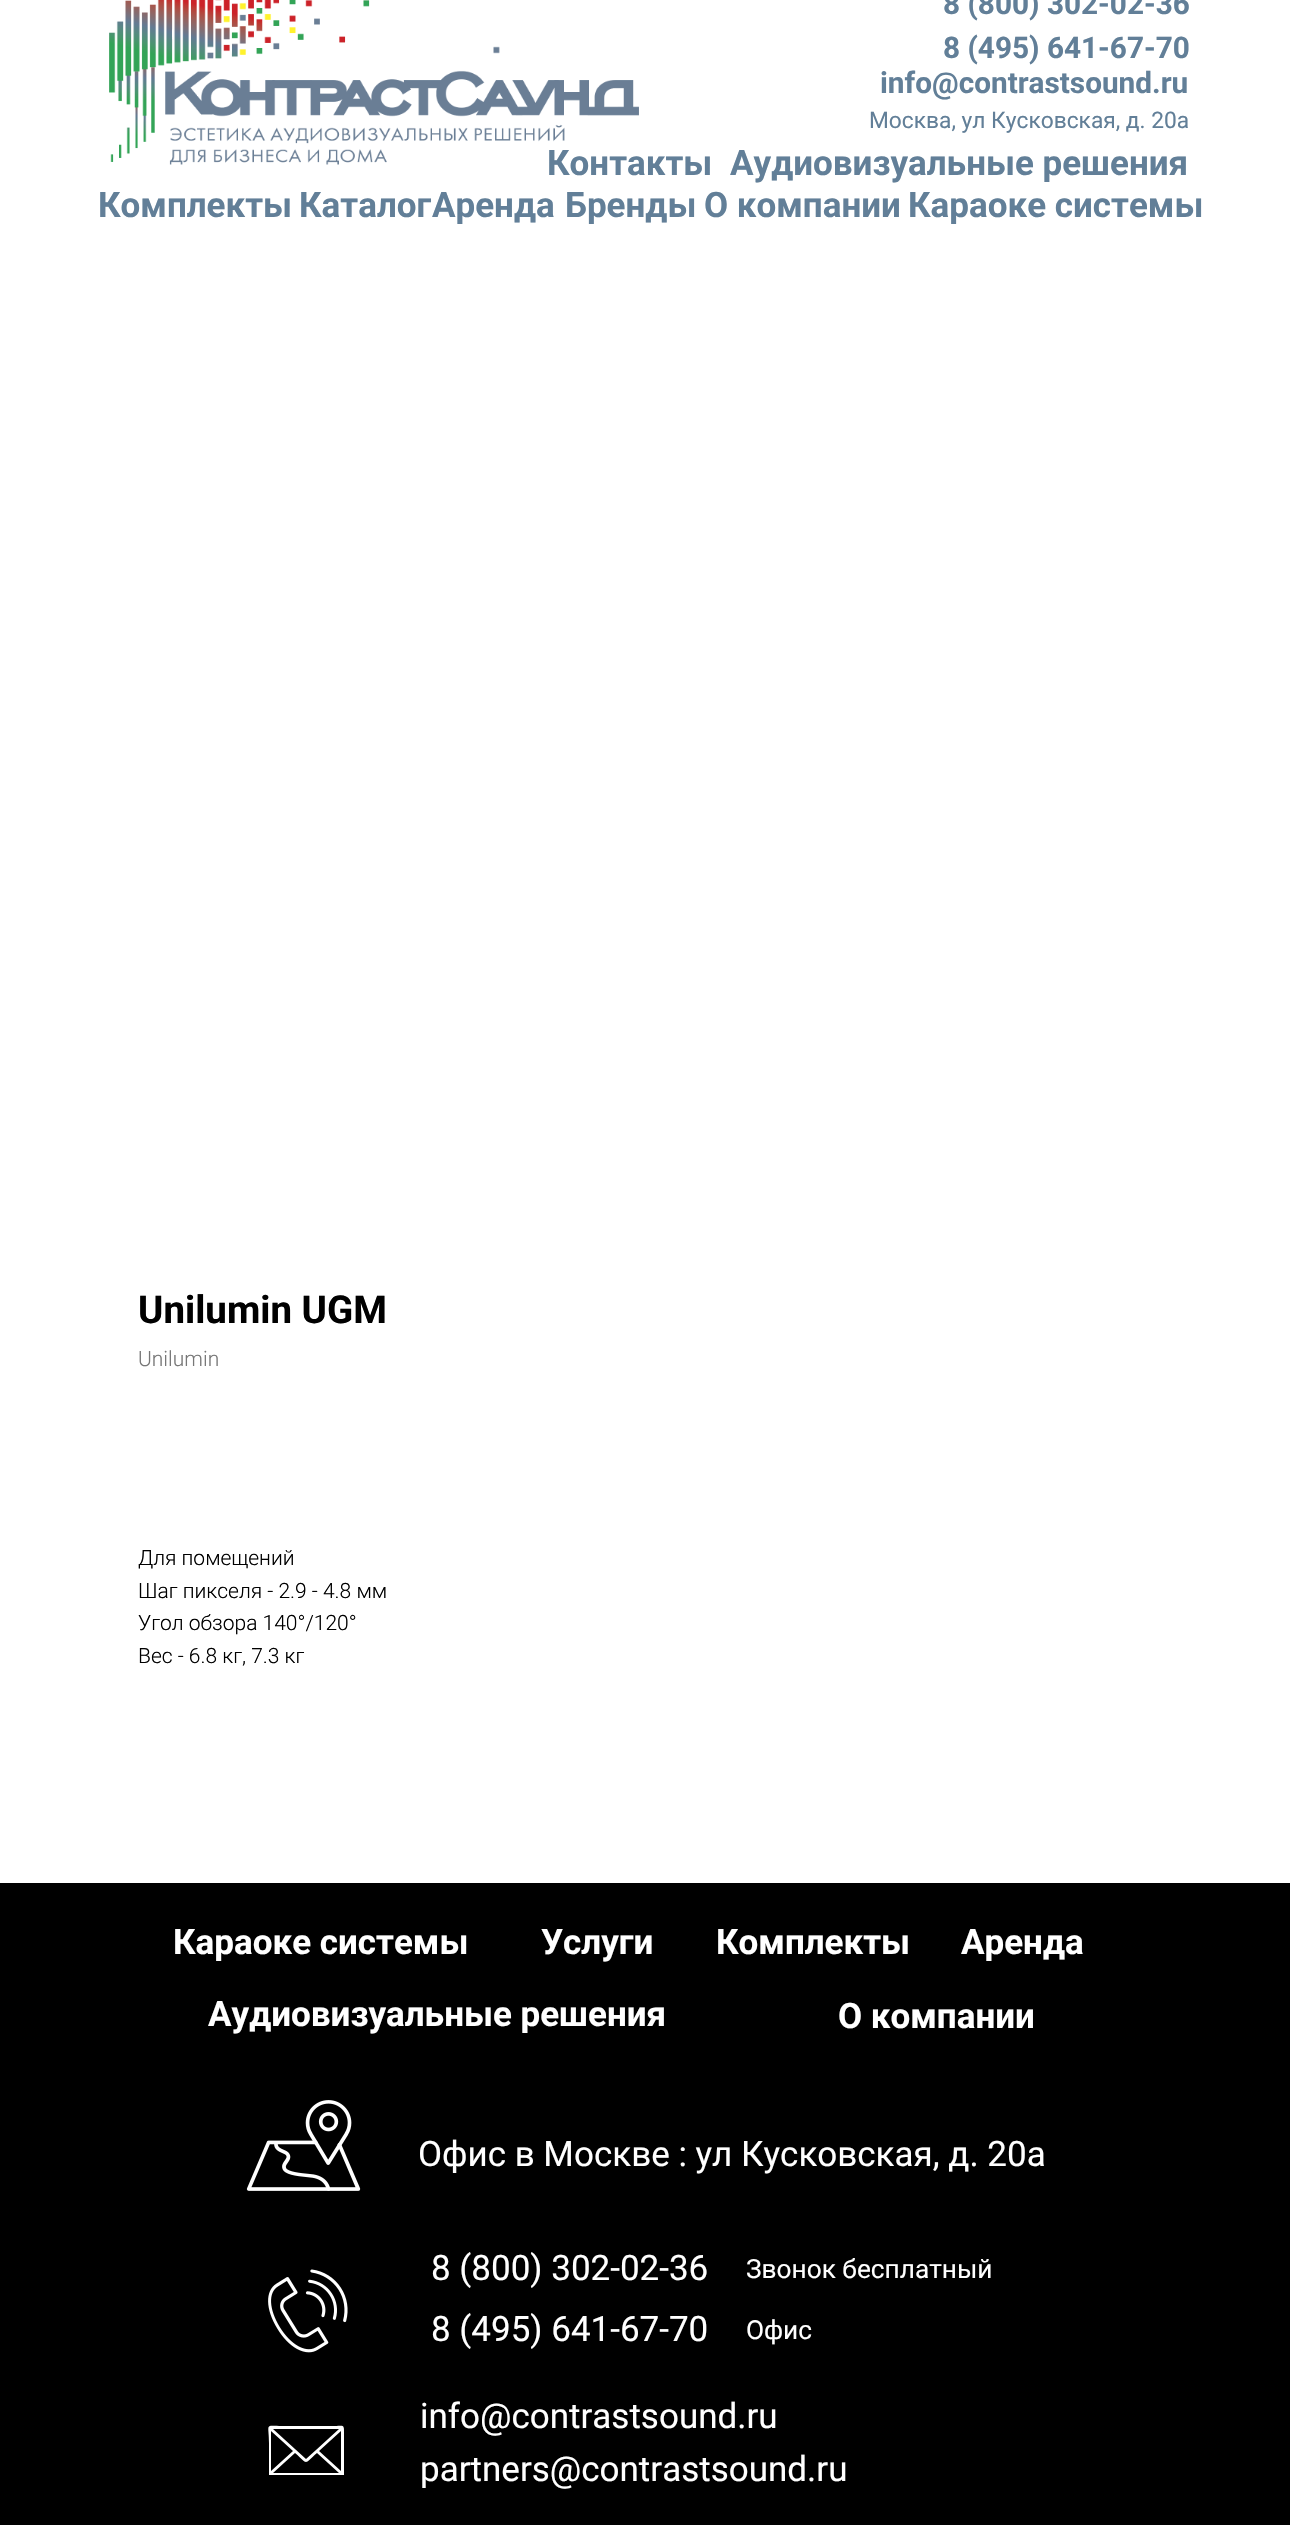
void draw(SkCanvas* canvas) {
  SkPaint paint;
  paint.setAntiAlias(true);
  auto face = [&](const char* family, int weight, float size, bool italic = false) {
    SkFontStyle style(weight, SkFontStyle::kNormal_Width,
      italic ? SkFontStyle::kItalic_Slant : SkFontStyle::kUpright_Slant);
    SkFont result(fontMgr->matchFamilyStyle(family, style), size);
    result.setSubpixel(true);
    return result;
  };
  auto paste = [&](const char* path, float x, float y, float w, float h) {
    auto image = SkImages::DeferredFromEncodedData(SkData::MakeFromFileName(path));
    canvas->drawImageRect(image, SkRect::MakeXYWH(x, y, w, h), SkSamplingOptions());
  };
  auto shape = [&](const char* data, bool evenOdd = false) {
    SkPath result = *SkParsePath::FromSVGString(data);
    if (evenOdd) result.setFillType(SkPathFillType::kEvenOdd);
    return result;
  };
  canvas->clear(0xffffffff);
  paint.setColor(0xff000000);
  canvas->drawRect(SkRect::MakeXYWH(0, 1883, 1290, 642), paint);
  paste("img/2.png", 246, 2100, 115, 91);
  paste("img/3.png", 268, 2269, 80, 84);
  paint.setColor(0xffffffff);
  canvas->drawPath(shape("M344 2474V2435C344 2423 345 2426 330 2426H282C264 2426 269 2423 269 2443V2474V2475H344ZM271 2431L293 2451L271 2471ZM316 2450L306 2459L273 2429H339ZM295 2453C309 2465 303 2465 317 2453L339 2473H273ZM319 2451L341 2431V2471Z"), paint);
  auto f0 = face("Roboto", 700, 29.75f);
  paint.setColor(0xff627f98);
  {
    const struct { const char* s; float x, y; } items[] = {
      {"8 (800) 302-02-36", 943, 14},
      {"8 (495) 641-67-70", 943, 58},
      {"info@contrastsound.ru", 880, 93},
    };
    for (auto [s, x, y] : items) {
      canvas->drawString(s, x, y, f0, paint);
    }
  }
  auto f1 = face("Roboto", 400, 22.75f);
  canvas->drawString("Москва, ул Кусковская, д. 20а", 869, 128, f1, paint);
  auto f2 = face("Roboto", 700, 35);
  canvas->drawString("Контакты", 547, 175, f2, paint);
  paste("img/1.png", 109, 0, 530, 165);
  {
    const struct { const char* s; float x, y; } items[] = {
      {"Аудиовизуальные решения", 730, 175},
      {"Комплекты", 98, 217},
      {"Каталог", 299, 217},
      {"Аренда", 432, 217},
      {"Бренды", 565, 217},
      {"О компании", 704, 217},
      {"Караоке системы", 908, 217},
    };
    for (auto [s, x, y] : items) {
      canvas->drawString(s, x, y, f2, paint);
    }
  }
  auto f3 = face("Roboto", 700, 38.5f);
  paint.setColor(0xff000000);
  canvas->drawString("Unilumin UGM", 138, 1323, f3, paint);
  auto f4 = face("Roboto", 300, 21);
  paint.setColor(0xff777777);
  canvas->drawString("Unilumin", 138, 1366, f4, paint);
  paint.setColor(0xff000000);
  {
    const struct { const char* s; float x, y; } items[] = {
      {"Для помещений", 138, 1565},
      {"Шаг пикселя - 2.9 - 4.8 мм", 138, 1598},
      {"Угол обзора 140°/120°", 138, 1630},
      {"Вес - 6.8 кг, 7.3 кг", 138, 1663},
    };
    for (auto [s, x, y] : items) {
      canvas->drawString(s, x, y, f4, paint);
    }
  }
  paint.setColor(0xffffffff);
  {
    const struct { const char* s; float x, y; } items[] = {
      {"Караоке системы", 173, 1954},
      {"Услуги", 541, 1954},
      {"Комплекты", 716, 1954},
      {"Аренда", 961, 1954},
      {"Аудиовизуальные решения", 208, 2026},
      {"О компании", 838, 2028},
    };
    for (auto [s, x, y] : items) {
      canvas->drawString(s, x, y, f2, paint);
    }
  }
  auto f5 = face("Roboto", 400, 35);
  canvas->drawString("Офис в Москве : ул Кусковская, д. 20а", 418, 2166, f5, paint);
  canvas->drawString("8 (800) 302-02-36", 431, 2280, f5, paint);
  auto f6 = face("Roboto", 400, 26.25f);
  canvas->drawString("Звонок бесплатный", 746, 2278, f6, paint);
  canvas->drawString("8 (495) 641-67-70", 431, 2341, f5, paint);
  canvas->drawString("Офис", 746, 2339, f6, paint);
  canvas->drawString("info@contrastsound.ru", 420, 2428, f5, paint);
  canvas->drawString("partners@contrastsound.ru", 420, 2481, f5, paint);
}
